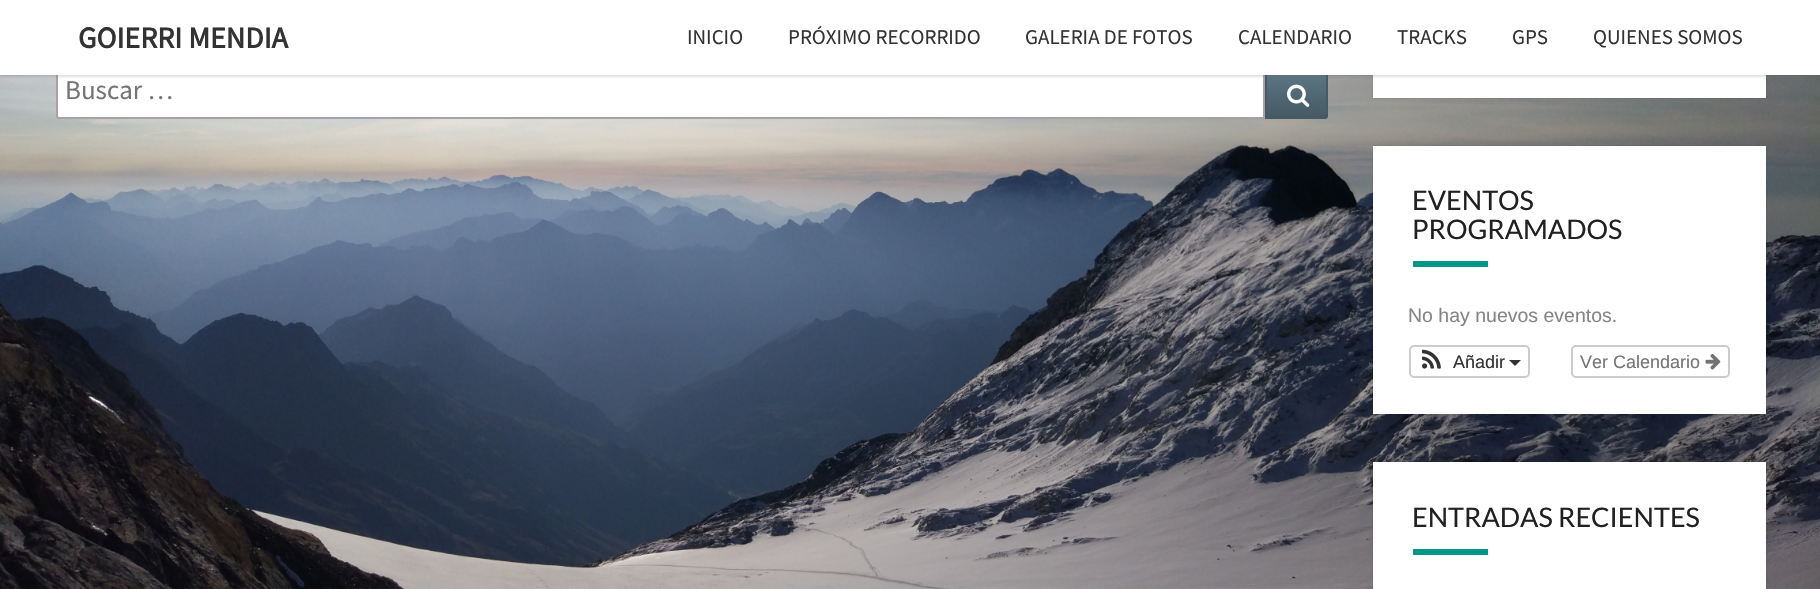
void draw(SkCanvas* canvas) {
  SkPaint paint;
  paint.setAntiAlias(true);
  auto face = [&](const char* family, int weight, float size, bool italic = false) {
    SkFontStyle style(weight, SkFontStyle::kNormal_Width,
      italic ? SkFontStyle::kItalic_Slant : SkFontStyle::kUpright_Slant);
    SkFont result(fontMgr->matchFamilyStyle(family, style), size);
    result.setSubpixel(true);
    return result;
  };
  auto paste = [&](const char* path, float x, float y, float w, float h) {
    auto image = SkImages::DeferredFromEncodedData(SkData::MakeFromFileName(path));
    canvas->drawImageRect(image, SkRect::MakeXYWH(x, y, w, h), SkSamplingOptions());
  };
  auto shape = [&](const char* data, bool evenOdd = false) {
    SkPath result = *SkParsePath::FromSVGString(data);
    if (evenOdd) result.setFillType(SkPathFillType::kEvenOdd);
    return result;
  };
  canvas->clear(0xffffffff);
  paste("img/1.png", 0, 75, 1820, 514);
  paint.setColor(0xffffffff);
  canvas->drawPath(shape("M59 63H1264V118H59C58 118 57 117 57 116V65C57 64 58 63 59 63Z"), paint);
  paint.setStroke(true);
  paint.setStrokeWidth(2);
  paint.setColor(0xffaaa1a8);
  canvas->drawPath(shape("M59 63H1264V118H59C58 118 57 117 57 116V65C57 64 58 63 59 63Z"), paint);
  paint.setStroke(false);
  {
    const SkColor colors[] = {0xff607d8b, 0xff455a64};
    const float stops[] = {0, 1};
    const SkPoint ends[] = {{1296, 63}, {1296, 117}};
    paint.setShader(SkGradientShader::MakeLinear(ends, colors, stops, 2, SkTileMode::kClamp));
    paint.setAlpha(255);
  }
  canvas->drawRect(SkRect::MakeXYWH(1267, 75, 61, 42), paint);
  paint.setStroke(true);
  paint.setShader(nullptr);
  paint.setColor(0xff455a64);
  canvas->drawPath(shape("M1266 63H1325C1326 63 1327 64 1327 65V116C1327 117 1326 118 1325 118H1266Z"), paint);
  paint.setStroke(false);
  paint.setColor(0x26000000);
  paint.setMaskFilter(SkMaskFilter::MakeBlur(kNormal_SkBlurStyle, 1));
  canvas->drawRect(SkRect::MakeXYWH(1373, -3, 393, 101), paint);
  paint.setMaskFilter(nullptr);
  paint.setColor(0xffffffff);
  canvas->drawRect(SkRect::MakeXYWH(1373, 75, 393, 23), paint);
  paint.setColor(0x33646464);
  paint.setMaskFilter(SkMaskFilter::MakeBlur(kNormal_SkBlurStyle, 1));
  canvas->drawRect(SkRect::MakeXYWH(0, 2, 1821, 75), paint);
  paint.setMaskFilter(nullptr);
  paint.setColor(0xffffffff);
  canvas->drawRect(SkRect::MakeXYWH(0, 0, 1820, 75), paint);
  paste("img/2.png", 1287, 84, 23, 23);
  paint.setColor(0x26000000);
  paint.setMaskFilter(SkMaskFilter::MakeBlur(kNormal_SkBlurStyle, 1));
  canvas->drawRect(SkRect::MakeXYWH(1373, 146, 393, 268), paint);
  paint.setMaskFilter(nullptr);
  paint.setColor(0xffffffff);
  canvas->drawRect(SkRect::MakeXYWH(1373, 146, 393, 268), paint);
  paint.setColor(0xff009688);
  canvas->drawRect(SkRect::MakeXYWH(1413, 261, 75, 6), paint);
  paint.setStroke(true);
  paint.setColor(0xffcccccc);
  canvas->drawRoundRect(SkRect::MakeXYWH(1410, 346, 119, 31), 4, 4, paint);
  paste("img/3.png", 1422, 349, 19, 20);
  paint.setStroke(false);
  paint.setColor(0xff333333);
  canvas->drawPath(shape("M1509 360H1521L1515 366Z"), paint);
  paint.setStroke(true);
  paint.setColor(0xffcccccc);
  canvas->drawRoundRect(SkRect::MakeXYWH(1572, 346, 157, 31), 4, 4, paint);
  paste("img/4.png", 1705, 353, 16, 17);
  paint.setStroke(false);
  paint.setColor(0x26000000);
  paint.setMaskFilter(SkMaskFilter::MakeBlur(kNormal_SkBlurStyle, 1));
  canvas->drawRect(SkRect::MakeXYWH(1373, 462, 393, 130), paint);
  paint.setMaskFilter(nullptr);
  paint.setColor(0xffffffff);
  canvas->drawRect(SkRect::MakeXYWH(1373, 462, 393, 127), paint);
  paint.setColor(0xff009688);
  canvas->drawRect(SkRect::MakeXYWH(1413, 549, 75, 6), paint);
  auto f0 = face("Source Sans Pro", 700, 30);
  paint.setColor(0xff333333);
  canvas->drawString("GOIERRI MENDIA", 78, 48, f0, paint);
  auto f1 = face("Source Sans Pro", 400, 21);
  {
    const struct { const char* s; float x, y; } items[] = {
      {"INICIO", 687, 44},
      {"PRÓXIMO RECORRIDO", 788, 44},
      {"GALERIA DE FOTOS", 1025, 44},
      {"CALENDARIO", 1238, 44},
      {"TRACKS", 1397, 44},
      {"GPS", 1512, 44},
      {"QUIENES SOMOS", 1593, 44},
    };
    for (auto [s, x, y] : items) {
      canvas->drawString(s, x, y, f1, paint);
    }
  }
  auto f2 = face("Source Sans Pro", 400, 27);
  paint.setColor(0xff757575);
  canvas->drawString("Buscar …", 65, 99, f2, paint);
  auto f3 = face("Lato", 400, 27);
  paint.setColor(0xff212121);
  canvas->drawString("EVENTOS", 1412, 210, f3, paint);
  canvas->drawString("PROGRAMADOS", 1412, 239, f3, paint);
  auto f4 = face("Liberation Sans", 400, 19.5f);
  paint.setColor(0xff858585);
  canvas->drawString("No hay nuevos eventos.", 1408, 322, f4, paint);
  auto f5 = face("Liberation Sans", 400, 18);
  paint.setColor(0xff333333);
  canvas->drawString("Añadir", 1453, 368, f5, paint);
  paint.setColor(0xff757575);
  canvas->drawString("Ver Calendario", 1580, 368, f5, paint);
  paint.setColor(0xff212121);
  canvas->drawString("ENTRADAS RECIENTES", 1412, 527, f3, paint);
}
